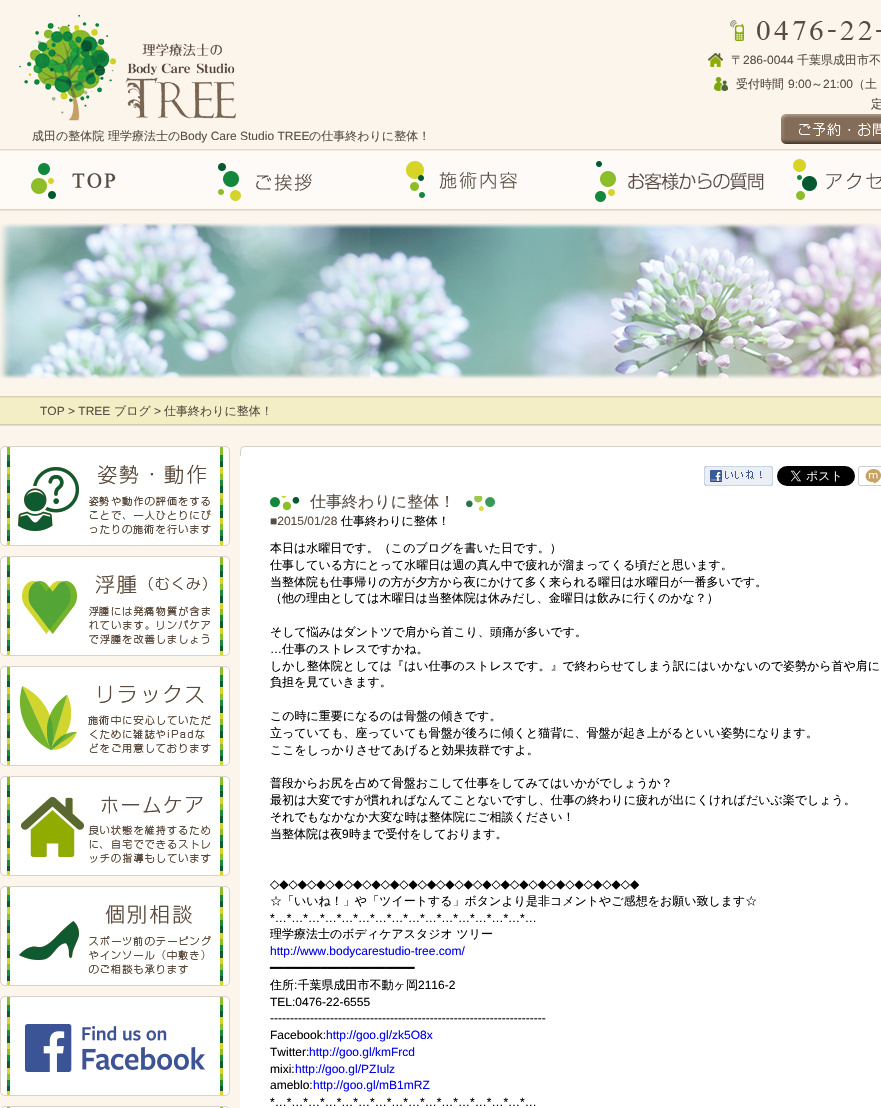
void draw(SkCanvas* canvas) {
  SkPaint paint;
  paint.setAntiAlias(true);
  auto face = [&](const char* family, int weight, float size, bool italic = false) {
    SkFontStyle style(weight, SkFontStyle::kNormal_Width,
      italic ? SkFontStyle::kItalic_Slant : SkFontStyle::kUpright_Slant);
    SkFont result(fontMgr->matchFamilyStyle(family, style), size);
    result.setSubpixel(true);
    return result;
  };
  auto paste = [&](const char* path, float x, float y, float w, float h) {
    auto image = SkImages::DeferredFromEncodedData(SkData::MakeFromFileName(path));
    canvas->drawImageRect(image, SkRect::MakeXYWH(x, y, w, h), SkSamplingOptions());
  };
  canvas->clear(0xfffcf5ec);
  paste("img/1.png", 19, 14, 217, 107);
  paste("img/2.png", 730, 20, 151, 21);
  paste("img/3.png", 708, 53, 15, 14);
  paste("img/4.png", 714, 77, 14, 14);
  paste("img/5.png", 781, 114, 100, 30);
  paste("img/6.png", 0, 149, 881, 62);
  paste("img/7.png", 31, 159, 850, 43);
  paste("img/8.png", 31, 163, 25, 36);
  paste("img/9.png", 218, 163, 23, 38);
  paste("img/10.png", 406, 161, 19, 37);
  paste("img/11.png", 595, 161, 21, 41);
  paste("img/12.png", 793, 159, 24, 41);
  paste("img/13.png", 0, 223, 881, 156);
  paste("img/14.png", 0, 396, 881, 30);
  paste("img/15.png", 0, 446, 230, 100);
  paste("img/16.png", 0, 556, 230, 100);
  paste("img/17.png", 0, 666, 230, 100);
  paste("img/18.png", 0, 776, 230, 100);
  paste("img/19.png", 0, 886, 230, 100);
  paste("img/20.png", 0, 996, 230, 100);
  paste("img/21.png", 1, 1106, 228, 2);
  paste("img/22.png", 240, 446, 641, 10);
  paint.setColor(0xffffffff);
  canvas->drawRect(SkRect::MakeXYWH(240, 456, 641, 652), paint);
  paste("img/23.png", 704, 466, 69, 20);
  paste("img/24.png", 777, 466, 78, 20);
  paste("img/25.png", 858, 466, 23, 20);
  paste("img/26.png", 270, 496, 30, 15);
  paste("img/27.png", 466, 496, 29, 15);
  auto f0 = face("WenQuanYi Zen Hei", 500, 12);
  paint.setColor(0xff594d43);
  canvas->drawString("〒", 731, 64, f0, paint);
  auto f1 = face("Liberation Sans", 400, 12);
  canvas->drawString("286-0044", 743, 64, f1, paint);
  canvas->drawString("千葉県成田市不", 797, 64, f0, paint);
  canvas->drawString("受付時間", 736, 88, f0, paint);
  canvas->drawString("9:00", 788, 88, f1, paint);
  canvas->drawString("～", 811, 88, f0, paint);
  canvas->drawString("21:00", 823, 88, f1, paint);
  {
    const struct { const char* s; float x, y; } items[] = {
      {"（土", 853, 88},
      {"定", 871, 108},
      {"成田の整体院 理学療法士の", 32, 140},
    };
    for (auto [s, x, y] : items) {
      canvas->drawString(s, x, y, f0, paint);
    }
  }
  canvas->drawString("Body Care Studio TREE", 180, 140, f1, paint);
  canvas->drawString("の仕事終わりに整体！", 309, 140, f0, paint);
  canvas->drawString("TOP > TREE", 40, 415, f1, paint);
  canvas->drawString("ブログ", 114, 415, f0, paint);
  canvas->drawString(">", 154, 415, f1, paint);
  canvas->drawString("仕事終わりに整体！", 164, 415, f0, paint);
  auto f2 = face("WenQuanYi Zen Hei", 500, 16);
  canvas->drawString("仕事終わりに整体！", 310, 507, f2, paint);
  canvas->drawString("■2015/01/28", 270, 525, f1, paint);
  paint.setColor(0xff000000);
  {
    const struct { const char* s; float x, y; } items[] = {
      {"仕事終わりに整体！", 341, 525},
      {"本日は水曜日です。（このブログを書いた日です。）", 270, 552},
      {"仕事している方にとって水曜日は週の真ん中で疲れが溜まってくる頃だと思います。", 270, 569},
      {"当整体院も仕事帰りの方が夕方から夜にかけて多く来られる曜日は水曜日が一番多いです。", 270, 586},
      {"（他の理由としては木曜日は当整体院は休みだし、金曜日は飲みに行くのかな？）", 270, 602},
      {"そして悩みはダントツで肩から首こり、頭痛が多いです。", 270, 636},
    };
    for (auto [s, x, y] : items) {
      canvas->drawString(s, x, y, f0, paint);
    }
  }
  canvas->drawString("…", 270, 653, f1, paint);
  {
    const struct { const char* s; float x, y; } items[] = {
      {"仕事のストレスですかね。", 282, 653},
      {"しかし整体院としては『はい仕事のストレスです。』で終わらせてしまう訳にはいかないので姿勢から首や肩に", 270, 670},
      {"負担を見ていきます。", 270, 686},
      {"この時に重要になるのは骨盤の傾きです。", 270, 720},
      {"立っていても、座っていても骨盤が後ろに傾くと猫背に、骨盤が起き上がるといい姿勢になります。", 270, 737},
      {"ここをしっかりさせてあげると効果抜群ですよ。", 270, 754},
      {"普段からお尻を占めて骨盤おこして仕事をしてみてはいかがでしょうか？", 270, 787},
      {"最初は大変ですが慣れればなんてことないですし、仕事の終わりに疲れが出にくければだいぶ楽でしょう。", 270, 804},
      {"それでもなかなか大変な時は整体院にご相談ください！", 270, 821},
      {"当整体院は夜", 270, 838},
    };
    for (auto [s, x, y] : items) {
      canvas->drawString(s, x, y, f0, paint);
    }
  }
  canvas->drawString("9", 342, 838, f1, paint);
  canvas->drawString("時まで受付をしております。", 349, 838, f0, paint);
  auto f3 = face("DejaVu Sans", 400, 12);
  canvas->drawString("◇◆◇◆◇◆◇◆◇◆◇◆◇◆◇◆◇◆◇◆◇◆◇◆◇◆◇◆◇◆◇◆◇◆◇◆◇◆◇◆", 270, 888, f3, paint);
  canvas->drawString("☆「いいね！」や「ツイートする」ボタンより是非コメントやご感想をお願い致します☆", 270, 905, f0, paint);
  canvas->drawString("*…*…*…*…*…*…*…*…*…*…*…*…*…*…*…*…", 270, 922, f1, paint);
  canvas->drawString("理学療法士のボディケアスタジオ ツリー", 270, 938, f0, paint);
  paint.setColor(0xff0000ee);
  canvas->drawString("http://www.bodycarestudio-tree.com/", 270, 955, f1, paint);
  paint.setColor(0xff000000);
  canvas->drawString("━━━━━━━━━━━━━━━━━━━━", 270, 972, f3, paint);
  canvas->drawString("住所 千葉県成田市不動ヶ岡", 270, 989, f0, paint);
  {
    const struct { const char* s; float x, y; } items[] = {
      {"2116-2", 418, 989},
      {":", 294, 989},
      {"TEL:0476-22-6555", 270, 1006},
      {"---------------------------------------------------------------------", 270, 1022},
      {"Facebook:", 270, 1039},
    };
    for (auto [s, x, y] : items) {
      canvas->drawString(s, x, y, f1, paint);
    }
  }
  paint.setColor(0xff0000ee);
  canvas->drawString("http://goo.gl/zk5O8x", 326, 1039, f1, paint);
  paint.setColor(0xff000000);
  canvas->drawString("Twitter:", 270, 1056, f1, paint);
  paint.setColor(0xff0000ee);
  canvas->drawString("http://goo.gl/kmFrcd", 309, 1056, f1, paint);
  paint.setColor(0xff000000);
  canvas->drawString("mixi:", 270, 1073, f1, paint);
  paint.setColor(0xff0000ee);
  canvas->drawString("http://goo.gl/PZIulz", 295, 1073, f1, paint);
  paint.setColor(0xff000000);
  canvas->drawString("ameblo:", 270, 1089, f1, paint);
  paint.setColor(0xff0000ee);
  canvas->drawString("http://goo.gl/mB1mRZ", 313, 1089, f1, paint);
  paint.setColor(0xff000000);
  canvas->drawString("*…*…*…*…*…*…*…*…*…*…*…*…*…*…*…*…", 270, 1106, f1, paint);
}
